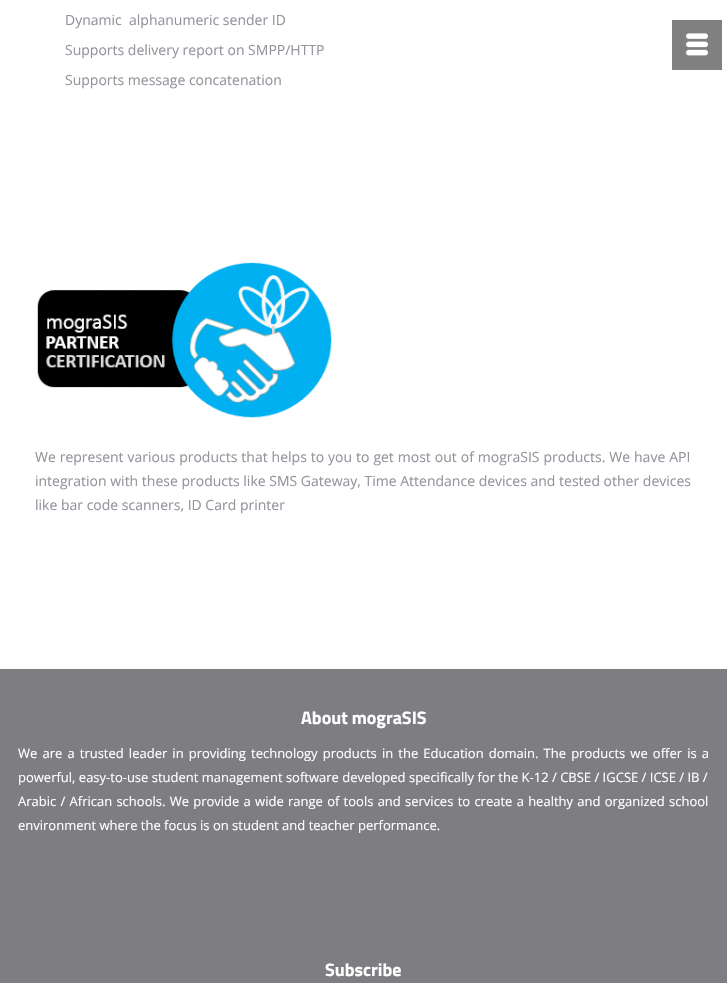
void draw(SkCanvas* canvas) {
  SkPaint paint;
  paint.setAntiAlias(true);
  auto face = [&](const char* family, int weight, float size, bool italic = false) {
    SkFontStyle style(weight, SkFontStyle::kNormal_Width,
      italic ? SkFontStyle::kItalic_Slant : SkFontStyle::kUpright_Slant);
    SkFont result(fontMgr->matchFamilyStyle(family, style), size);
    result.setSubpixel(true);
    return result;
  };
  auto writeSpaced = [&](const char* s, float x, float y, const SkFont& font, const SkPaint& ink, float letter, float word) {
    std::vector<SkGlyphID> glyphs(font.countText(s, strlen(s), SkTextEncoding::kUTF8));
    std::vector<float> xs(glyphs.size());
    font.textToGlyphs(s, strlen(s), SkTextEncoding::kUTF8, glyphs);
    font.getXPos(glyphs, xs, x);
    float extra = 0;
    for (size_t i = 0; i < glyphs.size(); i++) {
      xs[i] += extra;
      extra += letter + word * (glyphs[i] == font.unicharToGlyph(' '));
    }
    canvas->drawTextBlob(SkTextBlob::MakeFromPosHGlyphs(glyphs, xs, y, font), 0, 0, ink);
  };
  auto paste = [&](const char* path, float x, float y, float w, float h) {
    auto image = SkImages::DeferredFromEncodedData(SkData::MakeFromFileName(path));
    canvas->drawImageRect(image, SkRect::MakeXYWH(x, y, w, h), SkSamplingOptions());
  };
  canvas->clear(0xffffffff);
  paste("img/1.png", 37, 262, 295, 156);
  paint.setColor(0xff808080);
  canvas->drawRect(SkRect::MakeXYWH(672, 20, 50, 50), paint);
  paste("img/2.png", 686, 33, 22, 23);
  paint.setColor(0xff7d7d82);
  canvas->drawRect(SkRect::MakeXYWH(0, 669, 727, 314), paint);
  auto f0 = face("Open Sans", 400, 14);
  paint.setColor(0xff93959d);
  {
    const struct { const char* s; float x, y; } items[] = {
      {"Dynamic  alphanumeric sender ID", 65, 25},
      {"Supports delivery report on SMPP/HTTP", 65, 55},
      {"Supports message concatenation", 65, 85},
    };
    for (auto [s, x, y] : items) {
      canvas->drawString(s, x, y, f0, paint);
    }
  }
  writeSpaced("We represent various products that helps to you to get most out of mograSIS products. We have API", 35, 462, f0, paint, 0, 0.3f);
  canvas->drawString("integration with these products like SMS Gateway, Time Attendance devices and tested other devices", 35, 486, f0, paint);
  canvas->drawString("like bar code scanners, ID Card printer", 35, 510, f0, paint);
  auto f1 = face("Titillium Web", 700, 18);
  paint.setColor(0xffffffff);
  canvas->drawString("About mograSIS", 301, 724, f1, paint);
  auto f2 = face("Open Sans", 400, 13);
  writeSpaced("We are a trusted leader in providing technology products in the Education domain. The products we offer is a", 18, 758, f2, paint, 0, 1.75f);
  canvas->drawString("powerful, easy-to-use student management software developed specifically for the K-12 / CBSE / IGCSE / ICSE / IB /", 18, 782, f2, paint);
  writeSpaced("Arabic / African schools. We provide a wide range of tools and services to create a healthy and organized school", 18, 806, f2, paint, 0, 0.9f);
  canvas->drawString("environment where the focus is on student and teacher performance.", 18, 830, f2, paint);
  canvas->drawString("Subscribe", 325, 976, f1, paint);
}
